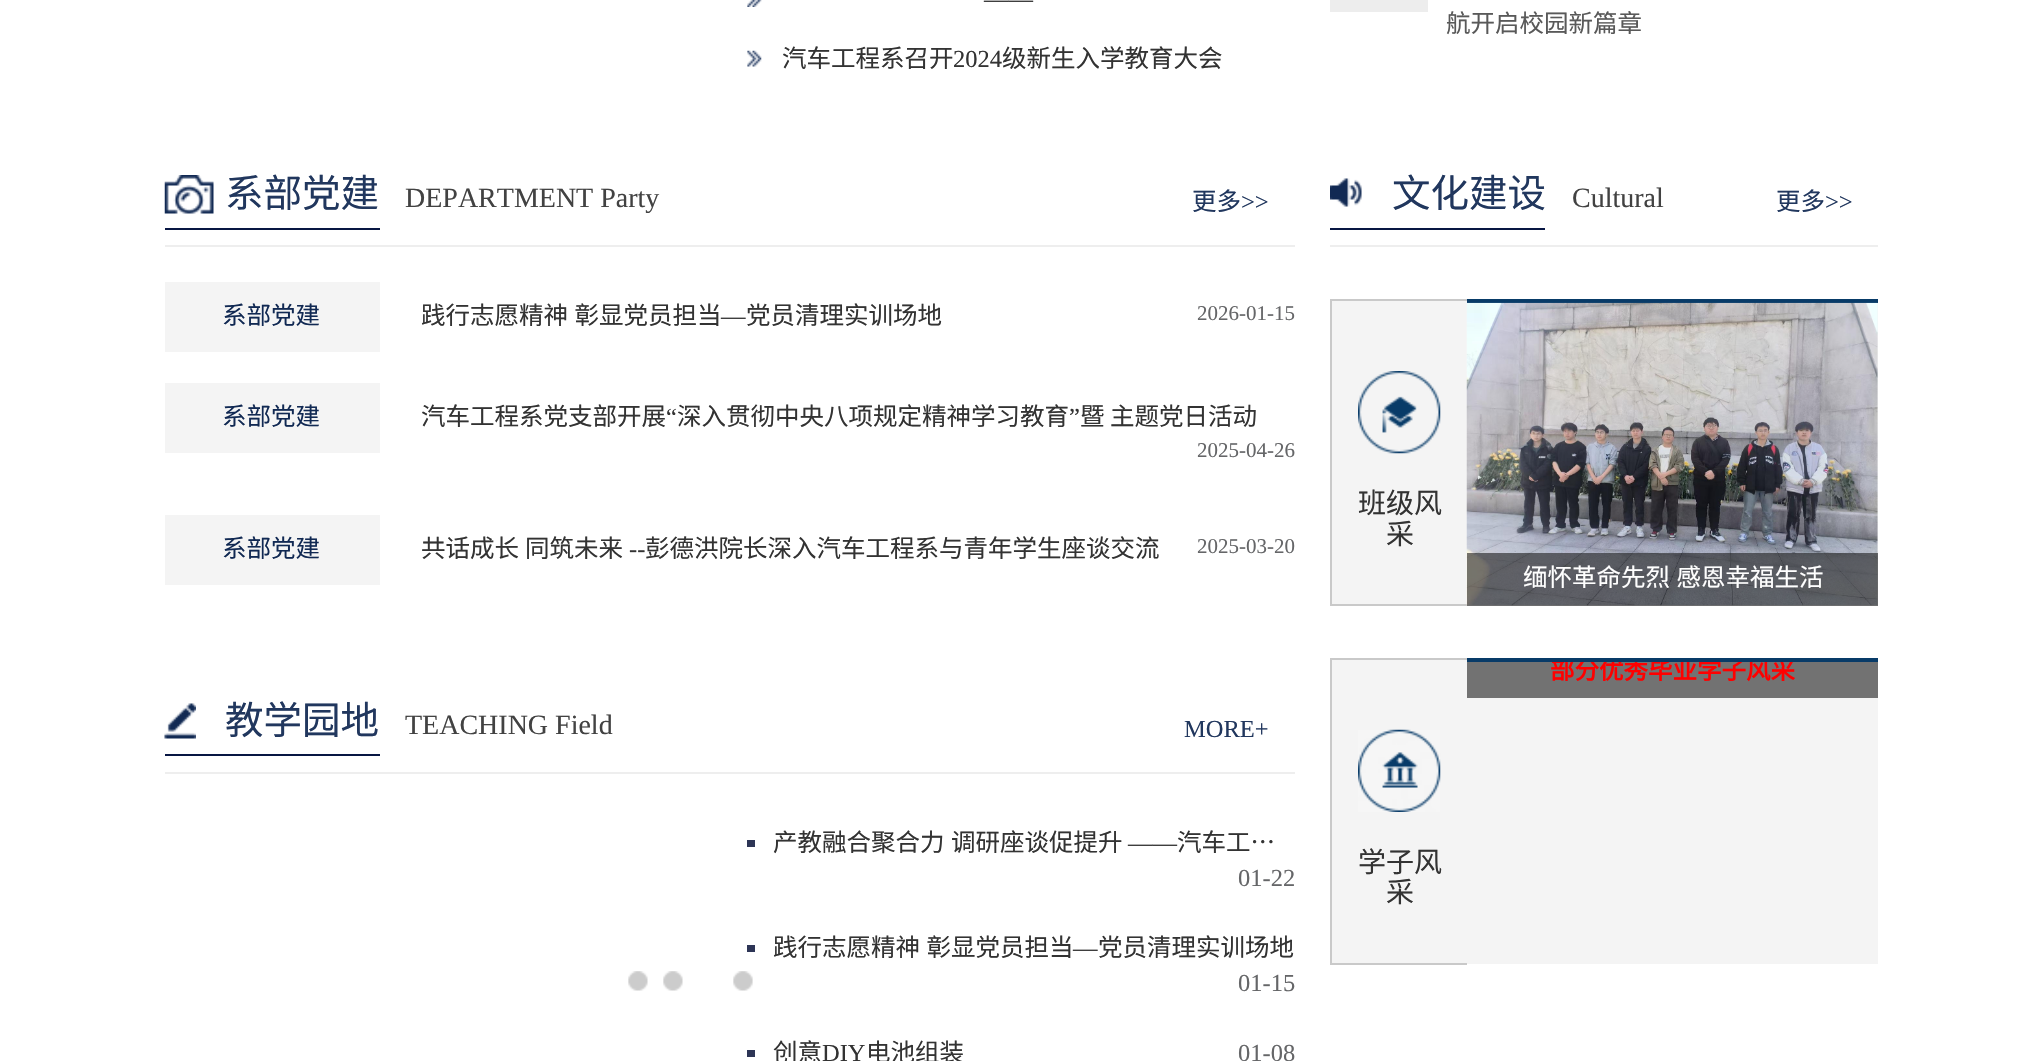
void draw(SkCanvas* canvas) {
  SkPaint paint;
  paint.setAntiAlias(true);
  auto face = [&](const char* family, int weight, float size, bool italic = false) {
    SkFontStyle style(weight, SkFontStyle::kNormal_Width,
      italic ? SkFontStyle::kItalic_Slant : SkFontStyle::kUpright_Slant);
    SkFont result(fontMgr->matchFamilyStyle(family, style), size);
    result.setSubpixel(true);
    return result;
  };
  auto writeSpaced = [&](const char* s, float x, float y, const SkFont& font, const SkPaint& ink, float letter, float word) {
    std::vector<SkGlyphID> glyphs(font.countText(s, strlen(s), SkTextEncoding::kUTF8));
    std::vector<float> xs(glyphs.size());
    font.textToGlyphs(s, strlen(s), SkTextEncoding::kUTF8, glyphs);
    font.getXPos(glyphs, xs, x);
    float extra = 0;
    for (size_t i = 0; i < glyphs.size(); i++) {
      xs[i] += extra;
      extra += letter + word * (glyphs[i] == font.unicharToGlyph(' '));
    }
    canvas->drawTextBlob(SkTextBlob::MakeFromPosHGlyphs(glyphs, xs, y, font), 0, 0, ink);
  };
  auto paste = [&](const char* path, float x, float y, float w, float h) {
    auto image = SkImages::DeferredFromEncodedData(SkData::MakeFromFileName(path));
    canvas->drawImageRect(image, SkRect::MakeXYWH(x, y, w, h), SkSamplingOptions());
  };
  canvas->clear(0xffffffff);
  paste("img/1.png", 747, 0, 15, 7);
  paste("img/2.png", 747, 50, 15, 17);
  paint.setColor(0xffededed);
  canvas->drawRect(SkRect::MakeXYWH(1330, 0, 98, 12), paint);
  paint.setColor(0xffeeeeee);
  canvas->drawRect(SkRect::MakeXYWH(165, 245, 1130, 2), paint);
  paste("img/3.png", 164, 175, 50, 39);
  {
    const struct { float x, y, w, h; SkColor color; } items[] = {
      {165, 228, 215, 2, 0xff081643},
      {165, 282, 215, 70, 0xfff4f4f4},
      {165, 383, 215, 70, 0xfff4f4f4},
      {165, 515, 215, 70, 0xfff4f4f4},
      {165, 772, 1130, 2, 0xffeeeeee},
    };
    for (auto [x, y, w, h, color] : items) {
      paint.setColor(color);
      canvas->drawRect(SkRect::MakeXYWH(x, y, w, h), paint);
    }
  }
  paste("img/4.png", 164, 703, 32, 36);
  paint.setColor(0xff081643);
  canvas->drawRect(SkRect::MakeXYWH(165, 754, 215, 2), paint);
  paste("img/5.png", 628, 971, 20, 20);
  paste("img/5.png", 663, 971, 20, 20);
  paste("img/6.png", 733, 971, 20, 20);
  {
    const struct { float x, y, w, h; SkColor color; } items[] = {
      {747, 840, 8, 7, 0xff2d3556},
      {747, 945, 8, 7, 0xff2d3556},
      {747, 1050, 8, 7, 0xff2d3556},
      {1330, 245, 548, 2, 0xffeeeeee},
    };
    for (auto [x, y, w, h, color] : items) {
      paint.setColor(color);
      canvas->drawRect(SkRect::MakeXYWH(x, y, w, h), paint);
    }
  }
  paste("img/7.png", 1330, 178, 32, 29);
  {
    const struct { float x, y, w, h; SkColor color; } items[] = {
      {1330, 228, 215, 2, 0xff081643},
      {1332, 301, 546, 305, 0xfff4f4f4},
      {1330, 299, 137, 2, 0xffc9c9c9},
      {1330, 604, 137, 2, 0xffc9c9c9},
      {1330, 299, 2, 307, 0xffc9c9c9},
    };
    for (auto [x, y, w, h, color] : items) {
      paint.setColor(color);
      canvas->drawRect(SkRect::MakeXYWH(x, y, w, h), paint);
    }
  }
  paste("img/8.png", 1358, 371, 83, 83);
  paint.setColor(0xff083b68);
  canvas->drawRect(SkRect::MakeXYWH(1467, 299, 411, 4), paint);
  paste("img/9.png", 1466, 302, 412, 304);
  {
    const struct { float x, y, w, h; SkColor color; } items[] = {
      {1467, 553, 411, 53, 0x991b1b1b},
      {1332, 660, 546, 304, 0xfff4f4f4},
      {1467, 658, 411, 4, 0xff083b68},
      {1467, 662, 411, 36, 0xff727272},
      {1330, 658, 137, 2, 0xffc9c9c9},
      {1330, 963, 137, 2, 0xffc9c9c9},
      {1330, 658, 2, 306, 0xffc9c9c9},
    };
    for (auto [x, y, w, h, color] : items) {
      paint.setColor(color);
      canvas->drawRect(SkRect::MakeXYWH(x, y, w, h), paint);
    }
  }
  paste("img/10.png", 1358, 729, 83, 83);
  auto f0 = face("Liberation Serif", 400, 24.5f);
  paint.setColor(0xff333333);
  canvas->drawString("——", 984, 7, f0, paint);
  auto f1 = face("Noto Sans CJK SC", 400, 24.5f);
  canvas->drawString("汽车工程系召开", 782, 67, f1, paint);
  canvas->drawString("2024", 953, 67, f0, paint);
  canvas->drawString("级新生入学教育大会", 1002, 67, f1, paint);
  paint.setColor(0xff595959);
  canvas->drawString("航开启校园新篇章", 1446, 32, f1, paint);
  auto f2 = face("Noto Sans CJK SC", 400, 38.5f);
  paint.setColor(0xff21375e);
  canvas->drawString("系部党建", 225, 207, f2, paint);
  auto f3 = face("Liberation Serif", 400, 28);
  paint.setColor(0xff424242);
  canvas->drawString("DEPARTMENT Party", 405, 207, f3, paint);
  paint.setColor(0xff21375e);
  canvas->drawString("更多", 1192, 210, f1, paint);
  canvas->drawString(">>", 1241, 210, f0, paint);
  paint.setColor(0xff112953);
  canvas->drawString("系部党建", 222, 324, f1, paint);
  paint.setColor(0xff333333);
  writeSpaced("践行志愿精神 彰显党员担当", 421, 324, f1, paint, 0, 1);
  canvas->drawString("—", 721, 324, f0, paint);
  canvas->drawString("党员清理实训场地", 746, 324, f1, paint);
  auto f4 = face("Liberation Serif", 400, 21);
  paint.setColor(0xff656668);
  canvas->drawString("2026-01-15", 1197, 320, f4, paint);
  paint.setColor(0xff112953);
  canvas->drawString("系部党建", 222, 425, f1, paint);
  paint.setColor(0xff333333);
  canvas->drawString("汽车工程系党支部开展", 421, 425, f1, paint);
  canvas->drawString("“", 666, 425, f0, paint);
  canvas->drawString("深入贯彻中央八项规定精神学习教育", 677, 425, f1, paint);
  canvas->drawString("”", 1069, 425, f0, paint);
  canvas->drawString("暨", 1080, 425, f1, paint);
  canvas->drawString("主题党日活动", 1110, 425, f1, paint);
  paint.setColor(0xff656668);
  canvas->drawString("2025-04-26", 1197, 457, f4, paint);
  paint.setColor(0xff112953);
  canvas->drawString("系部党建", 222, 557, f1, paint);
  paint.setColor(0xff333333);
  canvas->drawString("共话成长", 421, 557, f1, paint);
  canvas->drawString("同筑未来", 525, 557, f1, paint);
  canvas->drawString("--", 629, 557, f0, paint);
  canvas->drawString("彭德洪院长深入汽车工程系与青年学生座谈交流", 645, 557, f1, paint);
  paint.setColor(0xff656668);
  canvas->drawString("2025-03-20", 1197, 553, f4, paint);
  paint.setColor(0xff21375e);
  canvas->drawString("教学园地", 225, 734, f2, paint);
  paint.setColor(0xff424242);
  canvas->drawString("TEACHING Field", 405, 734, f3, paint);
  paint.setColor(0xff21375e);
  canvas->drawString("MORE+", 1184, 737, f0, paint);
  paint.setColor(0xff333333);
  writeSpaced("产教融合聚合力 调研座谈促提升", 773, 851, f1, paint, 0, 1);
  canvas->drawString("——", 1128, 851, f0, paint);
  canvas->drawString("汽车工…", 1177, 851, f1, paint);
  paint.setColor(0xff656668);
  canvas->drawString("01-22", 1238, 886, f0, paint);
  paint.setColor(0xff333333);
  writeSpaced("践行志愿精神 彰显党员担当", 773, 956, f1, paint, 0, 1);
  canvas->drawString("—", 1073, 956, f0, paint);
  canvas->drawString("党员清理实训场地", 1098, 956, f1, paint);
  paint.setColor(0xff656668);
  canvas->drawString("01-15", 1238, 991, f0, paint);
  paint.setColor(0xff333333);
  canvas->drawString("创意", 773, 1061, f1, paint);
  canvas->drawString("DIY", 822, 1061, f0, paint);
  canvas->drawString("电池组装", 866, 1061, f1, paint);
  paint.setColor(0xff656668);
  canvas->drawString("01-08", 1238, 1061, f0, paint);
  paint.setColor(0xff21375e);
  canvas->drawString("文化建设", 1392, 207, f2, paint);
  paint.setColor(0xff424242);
  canvas->drawString("Cultural", 1572, 207, f3, paint);
  paint.setColor(0xff21375e);
  canvas->drawString("更多", 1776, 210, f1, paint);
  canvas->drawString(">>", 1825, 210, f0, paint);
  auto f5 = face("Noto Sans CJK SC", 400, 28);
  paint.setColor(0xff333333);
  canvas->drawString("班级风", 1358, 513, f5, paint);
  canvas->drawString("采", 1386, 544, f5, paint);
  paint.setColor(0xffffffff);
  writeSpaced("缅怀革命先烈 感恩幸福生活", 1523, 586, f1, paint, 0, 1);
  canvas->save();
  canvas->clipRect(SkRect::MakeXYWH(1467, 662, 411, 36));
  auto f6 = face("Noto Sans CJK SC", 700, 24.5f);
  paint.setColor(0xffff0000);
  canvas->drawString("部分优秀毕业学子风采", 1550, 679, f6, paint);
  canvas->restore();
  paint.setColor(0xff333333);
  canvas->drawString("学子风", 1358, 872, f5, paint);
  canvas->drawString("采", 1386, 902, f5, paint);
}
